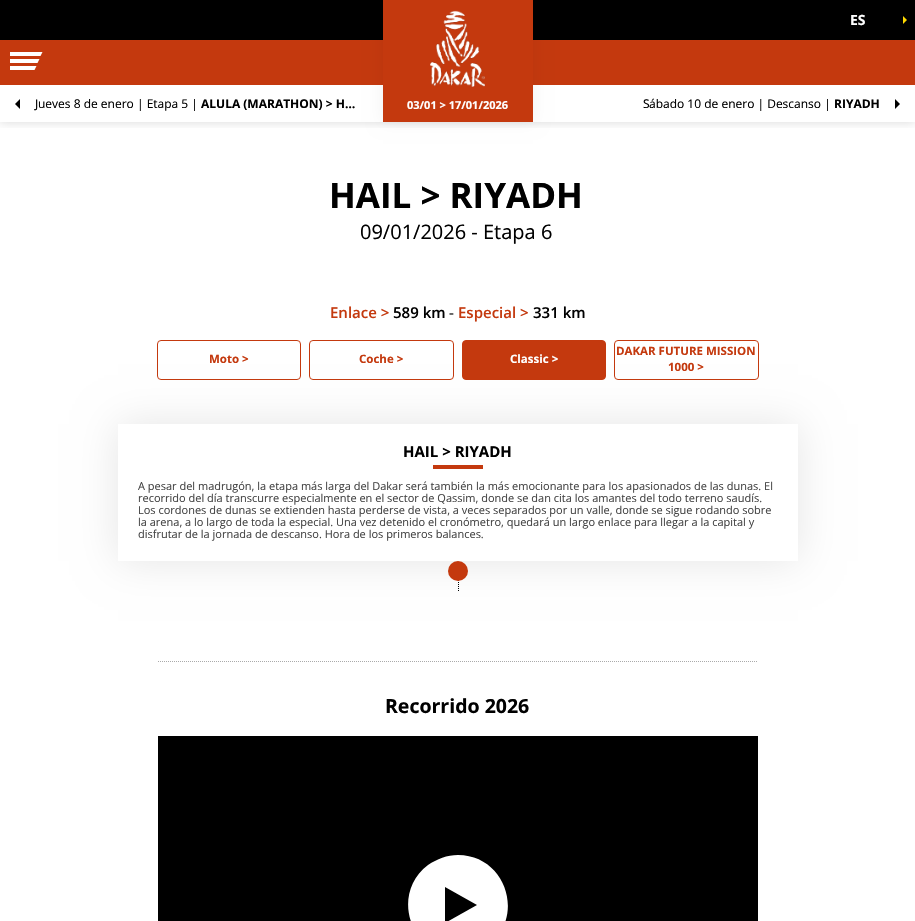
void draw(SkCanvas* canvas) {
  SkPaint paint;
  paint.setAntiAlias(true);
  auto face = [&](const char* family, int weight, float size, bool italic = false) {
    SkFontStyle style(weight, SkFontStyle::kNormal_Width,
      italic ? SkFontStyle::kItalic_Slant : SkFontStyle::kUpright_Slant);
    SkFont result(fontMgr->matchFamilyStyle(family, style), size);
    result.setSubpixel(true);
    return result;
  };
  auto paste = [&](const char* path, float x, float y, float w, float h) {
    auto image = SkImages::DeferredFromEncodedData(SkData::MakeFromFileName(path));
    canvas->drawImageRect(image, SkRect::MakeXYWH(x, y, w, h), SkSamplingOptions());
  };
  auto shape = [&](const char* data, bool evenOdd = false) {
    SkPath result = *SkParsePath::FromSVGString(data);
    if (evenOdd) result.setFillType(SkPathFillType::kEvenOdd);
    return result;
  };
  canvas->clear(0xffffffff);
  canvas->save();
  canvas->clipRect(SkRect::MakeXYWH(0, 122, 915, 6));
  paint.setColor(0x26000000);
  paint.setMaskFilter(SkMaskFilter::MakeBlur(kNormal_SkBlurStyle, 5));
  canvas->drawRect(SkRect::MakeXYWH(0, 0, 915, 122), paint);
  paint.setMaskFilter(nullptr);
  canvas->restore();
  paint.setColor(0xff000000);
  canvas->drawRect(SkRect::MakeXYWH(0, 0, 915, 40), paint);
  paint.setColor(0xffffda00);
  canvas->drawPath(shape("M903 24V16L907 20Z"), paint);
  paint.setColor(0xff000000);
  canvas->drawPath(shape("M20 99V109L15 104Z"), paint);
  canvas->drawPath(shape("M895 109V99L900 104Z"), paint);
  paint.setColor(0xffc4390e);
  canvas->drawRect(SkRect::MakeXYWH(0, 40, 915, 45), paint);
  paint.setColor(0xffffffff);
  canvas->drawRect(SkRect::MakeXYWH(10, 52, 29, 4), paint);
  canvas->drawPath(shape("M36.5 52H42.5L40.5 56H34.5Z"), paint);
  canvas->drawRect(SkRect::MakeXYWH(10, 59, 26, 4), paint);
  canvas->drawPath(shape("M34 59H39.5L37.5 63H32Z"), paint);
  canvas->drawRect(SkRect::MakeXYWH(10, 66, 23, 4), paint);
  canvas->drawPath(shape("M31.5 66H36.5L34.5 70H30Z"), paint);
  paint.setColor(0x0d000000);
  paint.setMaskFilter(SkMaskFilter::MakeBlur(kNormal_SkBlurStyle, 7.5f));
  canvas->drawRect(SkRect::MakeXYWH(383, 0, 150, 122), paint);
  paint.setMaskFilter(nullptr);
  paint.setColor(0xffc4390e);
  canvas->drawRect(SkRect::MakeXYWH(383, 0, 150, 122), paint);
  paste("img/1.png", 430, 10, 55, 77);
  paint.setStroke(true);
  paint.setStrokeWidth(1);
  canvas->drawRoundRect(SkRect::MakeXYWH(157.5f, 340.5f, 143, 39), 3.5f, 3.5f, paint);
  canvas->drawRoundRect(SkRect::MakeXYWH(309.5f, 340.5f, 144, 39), 3.5f, 3.5f, paint);
  canvas->drawRoundRect(SkRect::MakeXYWH(614.5f, 340.5f, 144, 39), 3.5f, 3.5f, paint);
  paint.setColor(0xff000000);
  paint.setPathEffect(SkDashPathEffect::Make({{1, 1}}, 0));
  canvas->drawPath(shape("M458.5 424V591"), paint);
  paint.setPathEffect(nullptr);
  paint.setStroke(false);
  paint.setColor(0x1a000000);
  paint.setMaskFilter(SkMaskFilter::MakeBlur(kNormal_SkBlurStyle, 20));
  canvas->drawRect(SkRect::MakeXYWH(118, 424, 680, 137), paint);
  paint.setMaskFilter(nullptr);
  paint.setColor(0xffc4390e);
  canvas->drawRoundRect(SkRect::MakeXYWH(462.5f, 340.5f, 143, 39), 3.5f, 3.5f, paint);
  paint.setStroke(true);
  canvas->drawRoundRect(SkRect::MakeXYWH(462.5f, 340.5f, 143, 39), 3.5f, 3.5f, paint);
  paint.setStroke(false);
  paint.setColor(0xffffffff);
  canvas->drawRect(SkRect::MakeXYWH(118, 424, 680, 137), paint);
  paint.setColor(0xffc4390e);
  canvas->drawRect(SkRect::MakeXYWH(433, 465, 50, 4), paint);
  canvas->drawCircle(458, 571, 10, paint);
  paint.setStroke(true);
  paint.setColor(0xffaaaaaa);
  paint.setPathEffect(SkDashPathEffect::Make({{1, 1}}, 0));
  canvas->drawPath(shape("M158 661.5H758"), paint);
  paint.setPathEffect(nullptr);
  paint.setStroke(false);
  paint.setColor(0xff000000);
  canvas->drawRect(SkRect::MakeXYWH(158, 736, 600, 185), paint);
  paint.setColor(0xffffffff);
  canvas->drawPath(shape("M458 855C447 855 437 859 428 865C390 894 410 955 458 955C469 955 479 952 488 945C526 917 506 855 458 855ZM445 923V887L477 905Z"), paint);
  auto f0 = face("Open Sans", 700, 14);
  canvas->drawString("ES", 850, 25, f0, paint);
  auto f1 = face("Noto Sans", 400, 12);
  paint.setColor(0xff000000);
  canvas->drawString("J", 35, 108, f1, paint);
  auto f2 = face("Open Sans", 400, 12);
  canvas->drawString("ueves 8 de enero | Etapa 5 |", 38, 108, f2, paint);
  auto f3 = face("Open Sans", 700, 12);
  canvas->drawString("ALULA (MARATHON) > H…", 201, 108, f3, paint);
  canvas->drawString("S", 643, 108, f1, paint);
  canvas->drawString("ábado 10 de enero | Descanso |", 649, 108, f2, paint);
  canvas->drawString("RIYADH", 834, 108, f3, paint);
  auto f4 = face("Open Sans", 700, 11);
  paint.setColor(0xffffffff);
  canvas->drawString("03/01 > 17/01/2026", 407, 109, f4, paint);
  auto f5 = face("Open Sans", 700, 35);
  paint.setColor(0xff000000);
  canvas->drawString("HAIL > RIYADH", 329, 208, f5, paint);
  auto f6 = face("Open Sans", 400, 20);
  canvas->drawString("09/01/2026 - Etapa 6", 360, 239, f6, paint);
  auto f7 = face("Open Sans", 600, 15);
  paint.setColor(0xffc4390e);
  canvas->drawString("Enlace >", 330, 318, f7, paint);
  paint.setColor(0xff000000);
  canvas->drawString("589 km", 393, 318, f7, paint);
  paint.setColor(0xff444444);
  canvas->drawString("-", 449, 318, f7, paint);
  paint.setColor(0xffc4390e);
  canvas->drawString("Especial >", 458, 318, f7, paint);
  paint.setColor(0xff000000);
  canvas->drawString("331 km", 533, 318, f7, paint);
  auto f8 = face("Open Sans", 700, 11.5f);
  paint.setColor(0xffc4390e);
  canvas->drawString("Moto >", 209, 363, f8, paint);
  canvas->drawString("Coche >", 359, 363, f8, paint);
  paint.setColor(0xffffffff);
  canvas->drawString("Classic >", 510, 363, f8, paint);
  paint.setColor(0xffc4390e);
  canvas->drawString("DAKAR FUTURE MISSION", 616, 355, f8, paint);
  canvas->drawString("1000 >", 668, 371, f8, paint);
  auto f9 = face("Open Sans", 700, 15);
  paint.setColor(0xff000000);
  canvas->drawString("HAIL > RIYADH", 403, 457, f9, paint);
  auto f10 = face("Open Sans", 400, 11);
  paint.setColor(0xff444444);
  {
    const struct { const char* s; float x, y; } items[] = {
      {"A pesar del madrugón, la etapa más larga del Dakar será también la más emocionante para los apasionados de las dunas. El", 138, 490},
      {"recorrido del día transcurre especialmente en el sector de Qassim, donde se dan cita los amantes del todo terreno saudís.", 138, 502},
      {"Los cordones de dunas se extienden hasta perderse de vista, a veces separados por un valle, donde se sigue rodando sobre", 138, 514},
      {"la arena, a lo largo de toda la especial. Una vez detenido el cronómetro, quedará un largo enlace para llegar a la capital y", 138, 526},
      {"disfrutar de la jornada de descanso. Hora de los primeros balances.", 138, 538},
    };
    for (auto [s, x, y] : items) {
      canvas->drawString(s, x, y, f10, paint);
    }
  }
  auto f11 = face("Open Sans", 700, 19.5f);
  paint.setColor(0xff000000);
  canvas->drawString("Recorrido 2026", 385, 713, f11, paint);
}
